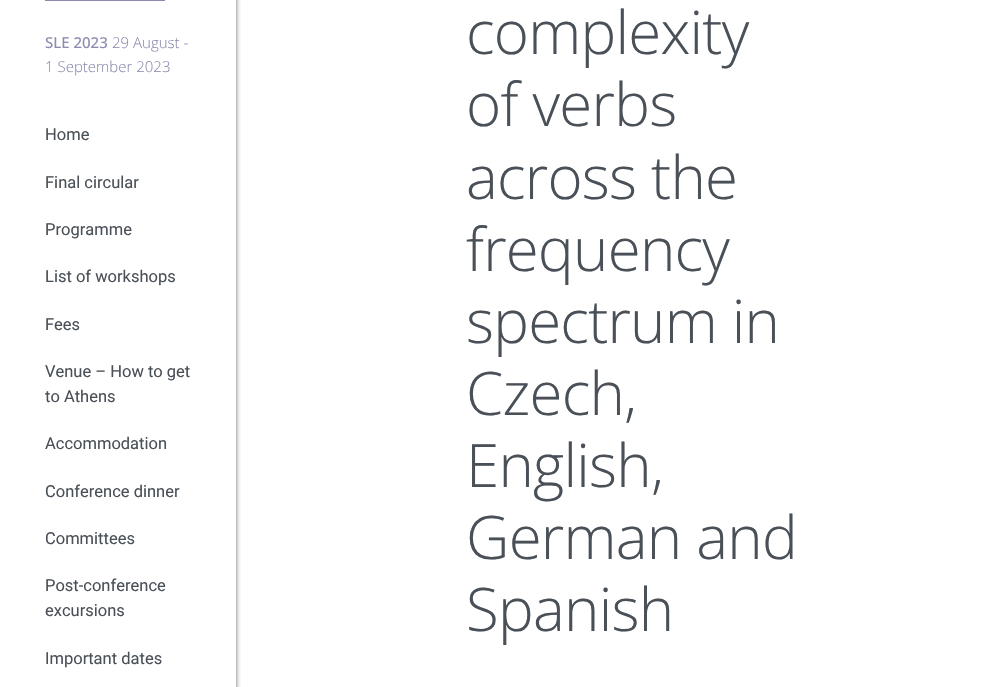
void draw(SkCanvas* canvas) {
  SkPaint paint;
  paint.setAntiAlias(true);
  auto face = [&](const char* family, int weight, float size, bool italic = false) {
    SkFontStyle style(weight, SkFontStyle::kNormal_Width,
      italic ? SkFontStyle::kItalic_Slant : SkFontStyle::kUpright_Slant);
    SkFont result(fontMgr->matchFamilyStyle(family, style), size);
    result.setSubpixel(true);
    return result;
  };
  auto writeSpaced = [&](const char* s, float x, float y, const SkFont& font, const SkPaint& ink, float letter, float word) {
    std::vector<SkGlyphID> glyphs(font.countText(s, strlen(s), SkTextEncoding::kUTF8));
    std::vector<float> xs(glyphs.size());
    font.textToGlyphs(s, strlen(s), SkTextEncoding::kUTF8, glyphs);
    font.getXPos(glyphs, xs, x);
    float extra = 0;
    for (size_t i = 0; i < glyphs.size(); i++) {
      xs[i] += extra;
      extra += letter + word * (glyphs[i] == font.unicharToGlyph(' '));
    }
    canvas->drawTextBlob(SkTextBlob::MakeFromPosHGlyphs(glyphs, xs, y, font), 0, 0, ink);
  };
  canvas->clear(0xffffffff);
  canvas->save();
  canvas->clipRect(SkRect::MakeXYWH(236, 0, 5, 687));
  paint.setColor(0xff686963);
  paint.setMaskFilter(SkMaskFilter::MakeBlur(kNormal_SkBlurStyle, 2.5f));
  canvas->drawRect(SkRect::MakeXYWH(0, -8, 236, 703), paint);
  paint.setMaskFilter(nullptr);
  canvas->restore();
  paint.setColor(0xff8b8baf);
  canvas->drawRect(SkRect::MakeXYWH(45, 0, 120, 1), paint);
  auto f0 = face("Open Sans", 500, 15);
  canvas->drawString("SLE 2023", 45, 48, f0, paint);
  auto f1 = face("Open Sans", 300, 15);
  canvas->drawString("29 August -", 112, 48, f1, paint);
  canvas->drawString("1 September 2023", 45, 72, f1, paint);
  auto f2 = face("Roboto", 400, 16.5f);
  paint.setColor(0xff495057);
  {
    const struct { const char* s; float x, y; } items[] = {
      {"Home", 45, 140},
      {"Final circular", 45, 188},
      {"Programme", 45, 235},
      {"List of workshops", 45, 282},
      {"Fees", 45, 330},
      {"Venue – How to get", 45, 377},
      {"to Athens", 45, 402},
      {"Accommodation", 45, 449},
      {"Conference dinner", 45, 497},
      {"Committees", 45, 544},
      {"Post-conference", 45, 591},
      {"excursions", 45, 616},
      {"Important dates", 45, 664},
    };
    for (auto [s, x, y] : items) {
      canvas->drawString(s, x, y, f2, paint);
    }
  }
  auto f3 = face("Open Sans", 300, 60);
  {
    const struct { const char* s; float x, y; } items[] = {
      {"complexity", 466, 54},
      {"of verbs", 466, 126},
      {"across the", 466, 199},
      {"frequency", 466, 271},
      {"spectrum in", 466, 343},
      {"Czech,", 466, 415},
      {"English,", 466, 487},
      {"German and", 466, 559},
      {"Spanish", 466, 631},
    };
    for (auto [s, x, y] : items) {
      writeSpaced(s, x, y, f3, paint, -0.75f, 0);
    }
  }
}
